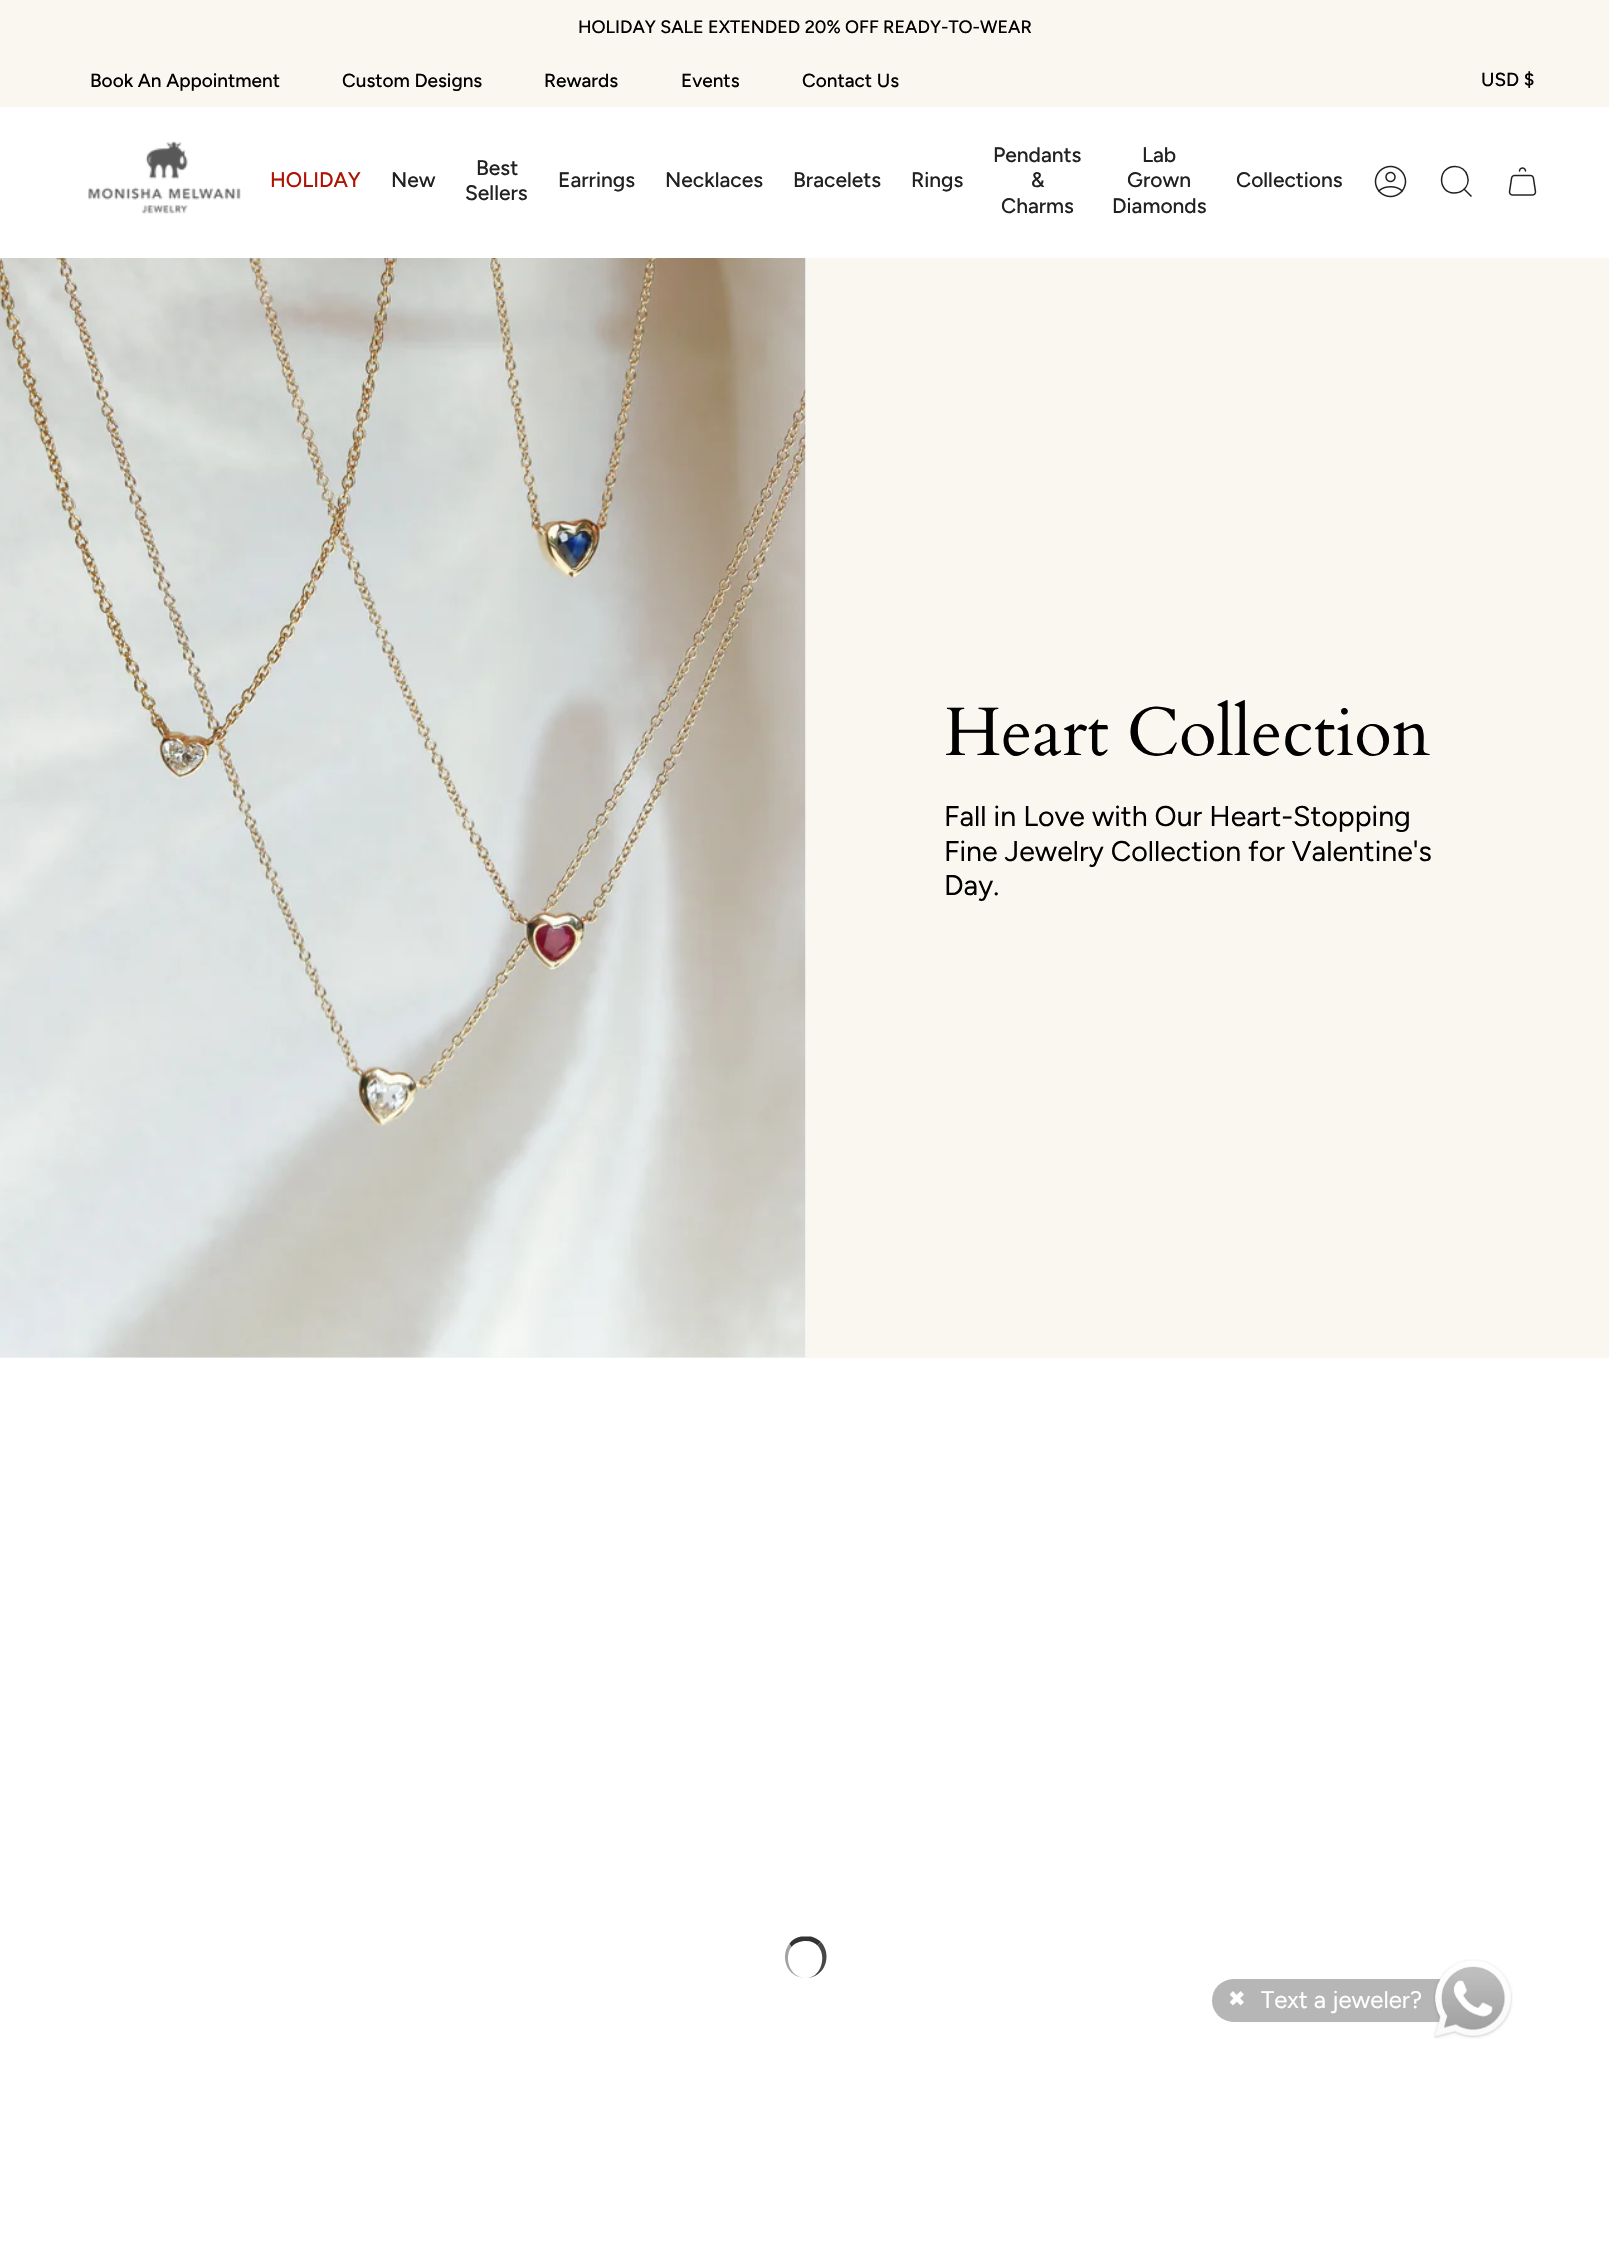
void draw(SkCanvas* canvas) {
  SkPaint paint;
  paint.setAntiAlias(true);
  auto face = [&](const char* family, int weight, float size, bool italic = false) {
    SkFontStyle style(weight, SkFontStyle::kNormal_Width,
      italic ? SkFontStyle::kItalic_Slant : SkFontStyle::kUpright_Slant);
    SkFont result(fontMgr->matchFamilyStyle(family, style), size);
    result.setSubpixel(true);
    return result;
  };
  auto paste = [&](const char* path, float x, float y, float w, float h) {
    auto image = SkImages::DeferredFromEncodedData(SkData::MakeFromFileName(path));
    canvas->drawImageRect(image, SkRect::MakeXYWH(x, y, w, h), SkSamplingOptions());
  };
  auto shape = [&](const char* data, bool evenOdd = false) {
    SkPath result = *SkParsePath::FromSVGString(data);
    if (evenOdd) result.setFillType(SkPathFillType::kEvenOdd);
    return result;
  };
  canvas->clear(0xffffffff);
  paint.setColor(0xfffaf7f0);
  canvas->drawRect(SkRect::MakeXYWH(0, 0, 1609, 107), paint);
  paste("img/1.png", 88, 141, 153, 73);
  paste("img/2.png", 1374, 165, 33, 33);
  paint.setStroke(true);
  paint.setStrokeWidth(1.5f);
  paint.setColor(0xff212121);
  canvas->drawPath(shape("M1455 166.5C1467.5 166.5 1473 183 1462.5 190.5C1460 192.5 1457 193 1454 193C1437 192.5 1437.5 166.5 1455 166.5ZM1464 189L1471.5 196.5"), paint);
  paste("img/3.png", 1508, 167, 29, 29);
  paint.setStroke(false);
  paint.setColor(0xfffaf7f0);
  canvas->drawRect(SkRect::MakeXYWH(806, 258, 803, 1100), paint);
  paint.setColor(0xfff7f9fa);
  canvas->drawRect(SkRect::MakeXYWH(0, 258, 806, 1100), paint);
  paste("img/4.png", 0, 258, 806, 1100);
  paint.setColor(0xff333333);
  canvas->drawPath(shape("M806 1941C799.5 1941 794.5 1943.5 791.5 1947L789.5 1943.5C792 1940 796 1937.5 801 1936.5H811C815 1937.5 818.5 1939.5 821 1942L817.5 1945.5C815 1943 811 1941 806 1941Z"), paint);
  paint.setColor(0xe6333333);
  canvas->drawPath(shape("M821 1942L817.5 1945.5C827.5 1956 821 1978.5 805.5 1978C824.5 1978.5 833 1955.5 821 1942Z"), paint);
  paint.setColor(0x73333333);
  canvas->drawPath(shape("M805.5 1978C785.5 1977.5 780 1955.5 789.5 1943.5L791.5 1947C783.5 1957.5 789.5 1977.5 805.5 1978Z"), paint);
  paint.setColor(0xffb6b6b6);
  canvas->drawRoundRect(SkRect::MakeXYWH(1212, 1979, 266, 43), 21.5f, 21.5f, paint);
  paste("img/5.png", 1433, 1959, 80, 80);
  auto f0 = face("Figtree", 500, 18);
  paint.setColor(0xff000000);
  canvas->drawString("HOLIDAY SALE EXTENDED 20% OFF READY-TO-WEAR", 578, 33, f0, paint);
  auto f1 = face("Figtree", 500, 19);
  {
    const struct { const char* s; float x, y; } items[] = {
      {"Book An Appointment", 90, 87},
      {"Custom Designs", 342, 87},
      {"Rewards", 544, 87},
      {"Events", 681, 87},
      {"Contact Us", 802, 87},
      {"USD $", 1481, 86},
    };
    for (auto [s, x, y] : items) {
      canvas->drawString(s, x, y, f1, paint);
    }
  }
  auto f2 = face("Figtree", 500, 21);
  paint.setColor(0xffaf1304);
  canvas->drawString("HOLIDAY", 270, 187, f2, paint);
  paint.setColor(0xff212121);
  {
    const struct { const char* s; float x, y; } items[] = {
      {"New", 391, 187},
      {"Best", 476, 175},
      {"Sellers", 465, 200},
      {"Earrings", 558, 187},
      {"Necklaces", 665, 187},
      {"Bracelets", 793, 187},
      {"Rings", 911, 187},
      {"Pendants", 993, 162},
      {"&", 1031, 187},
      {"Charms", 1001, 213},
      {"Lab", 1142, 162},
      {"Grown", 1127, 187},
      {"Diamonds", 1112, 213},
      {"Collections", 1236, 187},
    };
    for (auto [s, x, y] : items) {
      canvas->drawString(s, x, y, f2, paint);
    }
  }
  auto f3 = face("Cardo", 400, 68.5f);
  paint.setColor(0xff000000);
  canvas->drawString("Heart Collection", 944, 755, f3, paint);
  auto f4 = face("Figtree", 400, 28.5f);
  {
    const struct { const char* s; float x, y; } items[] = {
      {"Fall in Love with Our Heart-Stopping", 944, 826},
      {"Fine Jewelry Collection for Valentine's", 944, 861},
      {"Day.", 944, 895},
    };
    for (auto [s, x, y] : items) {
      canvas->drawString(s, x, y, f4, paint);
    }
  }
  auto f5 = face("DejaVu Sans", 400, 21);
  paint.setColor(0xffffffff);
  canvas->drawString("✖", 1228, 2006, f5, paint);
  auto f6 = face("Figtree", 400, 24);
  canvas->drawString("Text a jeweler?", 1261, 2008, f6, paint);
}
